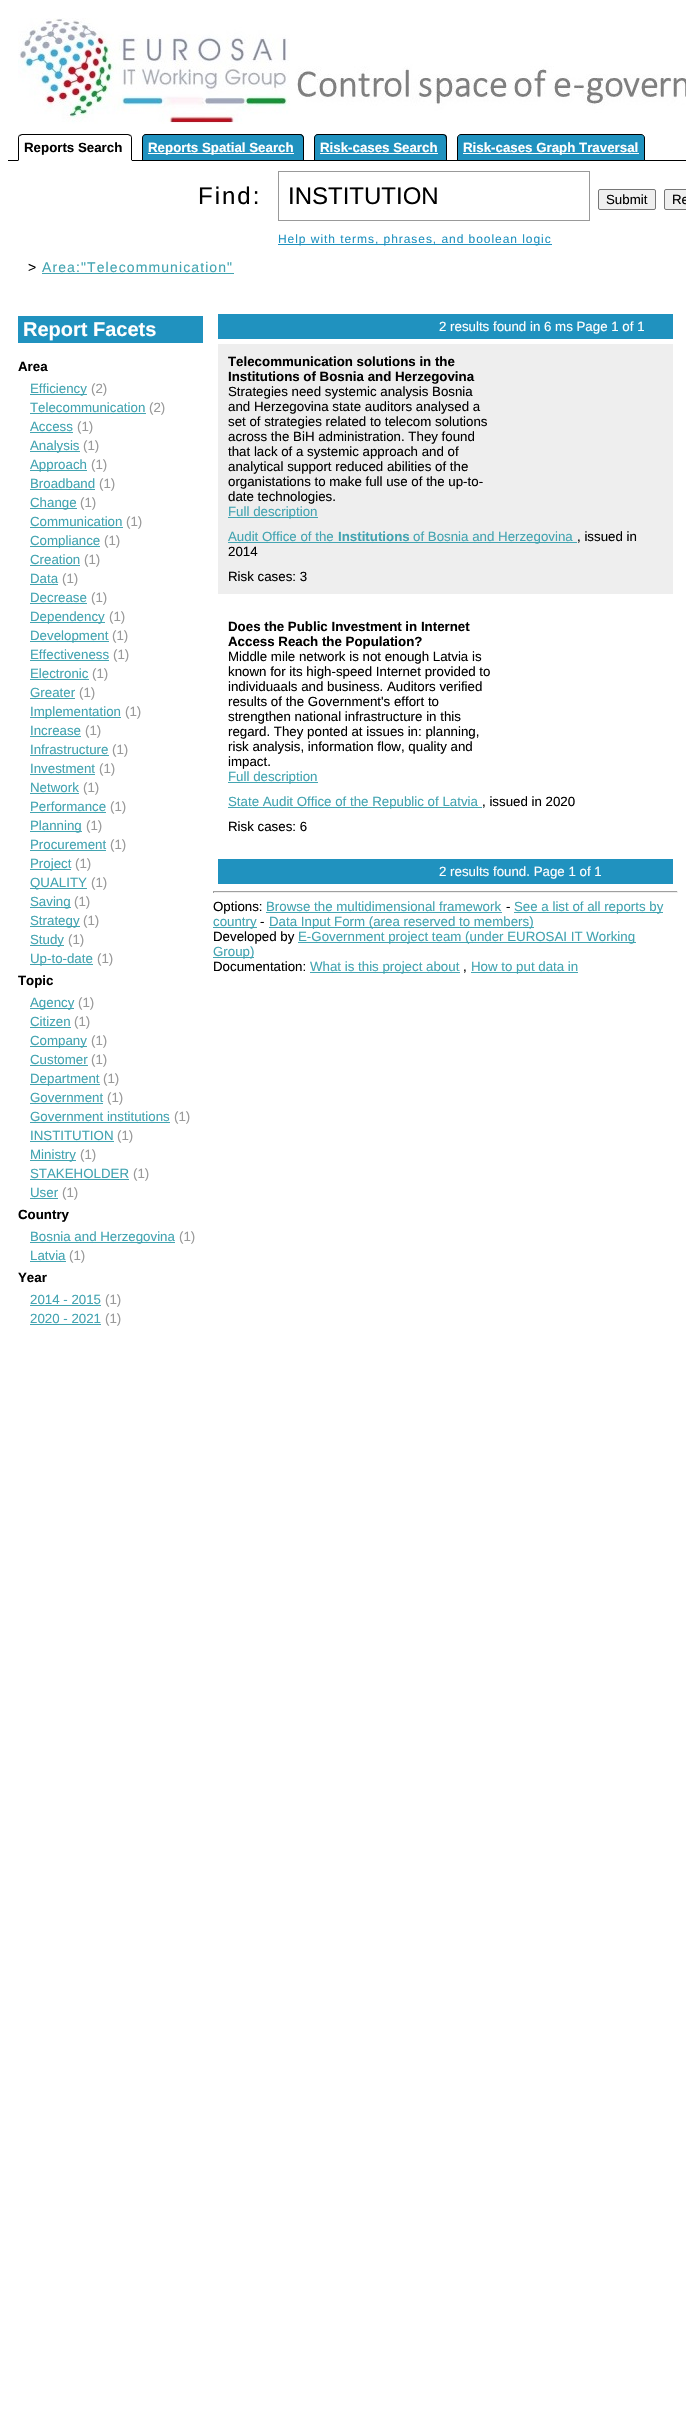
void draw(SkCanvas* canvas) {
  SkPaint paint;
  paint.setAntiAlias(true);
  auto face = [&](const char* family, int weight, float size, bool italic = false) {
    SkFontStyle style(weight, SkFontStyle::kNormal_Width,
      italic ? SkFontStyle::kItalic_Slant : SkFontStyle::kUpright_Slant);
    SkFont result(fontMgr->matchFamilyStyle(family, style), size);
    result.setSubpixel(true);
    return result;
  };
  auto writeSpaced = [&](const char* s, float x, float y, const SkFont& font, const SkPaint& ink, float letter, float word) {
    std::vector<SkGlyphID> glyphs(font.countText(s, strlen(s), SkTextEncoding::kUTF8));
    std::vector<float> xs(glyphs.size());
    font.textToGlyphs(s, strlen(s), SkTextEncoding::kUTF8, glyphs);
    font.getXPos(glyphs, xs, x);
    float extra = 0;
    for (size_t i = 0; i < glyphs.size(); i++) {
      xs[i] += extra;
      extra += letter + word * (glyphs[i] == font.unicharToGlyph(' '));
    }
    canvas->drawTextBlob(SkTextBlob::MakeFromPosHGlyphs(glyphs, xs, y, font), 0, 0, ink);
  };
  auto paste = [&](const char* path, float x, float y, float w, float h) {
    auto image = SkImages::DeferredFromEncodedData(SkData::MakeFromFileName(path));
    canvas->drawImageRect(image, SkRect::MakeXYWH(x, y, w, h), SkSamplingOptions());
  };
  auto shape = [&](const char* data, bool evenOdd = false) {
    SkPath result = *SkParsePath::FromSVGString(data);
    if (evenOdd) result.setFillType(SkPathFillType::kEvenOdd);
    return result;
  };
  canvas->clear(0xffffffff);
  paste("img/1.png", 18, 18, 668, 106);
  paint.setColor(0xff000000);
  canvas->drawRect(SkRect::MakeXYWH(8, 160, 678, 1), paint);
  paint.setColor(0xffffffff);
  canvas->drawPath(shape("M22 134H128C130 134 132 136 132 138V161H18V138C18 136 20 134 22 134Z"), paint);
  paint.setColor(0xff000000);
  canvas->drawPath(shape("M22 134L19 135L20 136L22 135H128L130 136L131 135L128 134Z"), paint);
  canvas->drawPath(shape("M132 161V138C132 137 131.5 136 131 135L130 136C131 136 131 137 131 138V160Z"), paint);
  paint.setColor(0xffffffff);
  canvas->drawPath(shape("M132 161L131 160H19L18 161Z"), paint);
  paint.setColor(0xff000000);
  canvas->drawPath(shape("M18 161L19 160V138C19 137 19 136 20 136L19 135C18.5 136 18 137 18 138Z"), paint);
  paint.setColor(0xff2092bf);
  canvas->drawPath(shape("M146 134H294V161H142V138C142 136 144 134 146 134Z"), paint);
  paint.setColor(0xff000000);
  canvas->drawPath(shape("M146 134H294V161H142V138C142 136 144 134 146 134ZM146 135H294V160H143V138C143 136 144 135 146 135Z", true), paint);
  paint.setColor(0xff2092bf);
  canvas->drawPath(shape("M294 134H300C302 134 304 136 304 138V161H294Z"), paint);
  paint.setColor(0xff000000);
  canvas->drawPath(shape("M294 134H300C302 134 304 136 304 138V161H294ZM294 135H300C301.5 135 303 136.5 303 138V160H294Z", true), paint);
  paint.setColor(0xffffffff);
  canvas->drawRect(SkRect::MakeXYWH(148, 153, 146, 1), paint);
  paint.setColor(0xff2092bf);
  canvas->drawPath(shape("M318 134H438V161H314V138C314 136 316 134 318 134Z"), paint);
  paint.setColor(0xff000000);
  canvas->drawPath(shape("M318 134H438V161H314V138C314 136 316 134 318 134ZM318 135H438V160H315V138C315 136 316 135 318 135Z", true), paint);
  paint.setColor(0xff2092bf);
  canvas->drawPath(shape("M438 134H443C445 134 447 136 447 138V161H438Z"), paint);
  paint.setColor(0xff000000);
  canvas->drawPath(shape("M438 134C448.5 134 447 134.5 447 145.5V161H438ZM438 135C445 135 446 134 446 141.5V160H438Z", true), paint);
  paint.setColor(0xffffffff);
  canvas->drawRect(SkRect::MakeXYWH(320, 153, 118, 1), paint);
  paint.setColor(0xff2092bf);
  canvas->drawPath(shape("M461 134.5H641C643 134.5 644.5 136 644.5 138V160.5H457.5V138C457.5 136 459 134.5 461 134.5Z"), paint);
  paint.setStroke(true);
  paint.setStrokeWidth(1);
  paint.setColor(0xff000000);
  canvas->drawPath(shape("M461 134.5H641C643 134.5 644.5 136 644.5 138V160.5H457.5V138C457.5 136 459 134.5 461 134.5Z"), paint);
  paint.setStroke(false);
  paint.setColor(0xffffffff);
  canvas->drawRect(SkRect::MakeXYWH(463, 153, 176, 1), paint);
  paint.setStroke(true);
  paint.setColor(0xff999999);
  canvas->drawRect(SkRect::MakeXYWH(278.5f, 171.5f, 311, 49), paint);
  paint.setStroke(false);
  paint.setColor(0xffefefef);
  canvas->drawRoundRect(SkRect::MakeXYWH(598.5f, 189.5f, 57, 20), 1.5f, 1.5f, paint);
  paint.setStroke(true);
  paint.setColor(0xff767676);
  canvas->drawRoundRect(SkRect::MakeXYWH(598.5f, 189.5f, 57, 20), 1.5f, 1.5f, paint);
  paint.setStroke(false);
  paint.setColor(0xffefefef);
  canvas->drawRoundRect(SkRect::MakeXYWH(664.5f, 189.5f, 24, 20), 1.5f, 1.5f, paint);
  paint.setStroke(true);
  paint.setColor(0xff767676);
  canvas->drawRoundRect(SkRect::MakeXYWH(664.5f, 189.5f, 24, 20), 1.5f, 1.5f, paint);
  paint.setStroke(false);
  {
    const struct { float x, y, w, h; SkColor color; } items[] = {
      {278, 244, 274, 1, 0xff2092bf},
      {42, 273, 192, 1, 0xff43a4b1},
      {18, 316, 185, 27, 0xff2092bf},
      {30, 394, 57, 1, 0xff43a4b1},
      {30, 413, 116, 1, 0xff43a4b1},
      {30, 432, 43, 1, 0xff43a4b1},
      {30, 451, 50, 1, 0xff43a4b1},
      {30, 470, 57, 1, 0xff43a4b1},
      {30, 489, 65, 1, 0xff43a4b1},
      {30, 508, 47, 1, 0xff43a4b1},
      {30, 527, 93, 1, 0xff43a4b1},
      {30, 546, 70, 1, 0xff43a4b1},
      {30, 565, 50, 1, 0xff43a4b1},
      {30, 584, 28, 1, 0xff43a4b1},
      {30, 603, 57, 1, 0xff43a4b1},
      {30, 622, 75, 1, 0xff43a4b1},
      {30, 641, 79, 1, 0xff43a4b1},
      {30, 660, 79, 1, 0xff43a4b1},
      {30, 679, 59, 1, 0xff43a4b1},
      {30, 698, 45, 1, 0xff43a4b1},
      {30, 717, 91, 1, 0xff43a4b1},
      {30, 736, 51, 1, 0xff43a4b1},
      {30, 755, 79, 1, 0xff43a4b1},
      {30, 774, 65, 1, 0xff43a4b1},
      {30, 793, 49, 1, 0xff43a4b1},
      {30, 812, 76, 1, 0xff43a4b1},
      {30, 831, 52, 1, 0xff43a4b1},
      {30, 850, 76, 1, 0xff43a4b1},
      {30, 869, 41, 1, 0xff43a4b1},
      {30, 888, 57, 1, 0xff43a4b1},
      {30, 907, 41, 1, 0xff43a4b1},
      {30, 926, 50, 1, 0xff43a4b1},
      {30, 945, 34, 1, 0xff43a4b1},
      {30, 964, 63, 1, 0xff43a4b1},
      {30, 1008, 44, 1, 0xff43a4b1},
      {30, 1027, 41, 1, 0xff43a4b1},
      {30, 1046, 57, 1, 0xff43a4b1},
      {30, 1065, 58, 1, 0xff43a4b1},
      {30, 1084, 70, 1, 0xff43a4b1},
      {30, 1103, 73, 1, 0xff43a4b1},
      {30, 1122, 140, 1, 0xff43a4b1},
      {30, 1141, 84, 1, 0xff43a4b1},
      {30, 1160, 46, 1, 0xff43a4b1},
      {30, 1179, 99, 1, 0xff43a4b1},
      {30, 1198, 28, 1, 0xff43a4b1},
      {30, 1242, 145, 1, 0xff43a4b1},
      {30, 1261, 36, 1, 0xff43a4b1},
      {30, 1305, 71, 1, 0xff43a4b1},
      {30, 1324, 71, 1, 0xff43a4b1},
      {218, 314, 455, 25, 0xff2092bf},
      {218, 344, 455, 250, 0xffeeeeee},
      {228, 517, 90, 1, 0xff43a4b1},
      {228, 542, 349, 1, 0xff43a4b1},
      {228, 782, 90, 1, 0xff43a4b1},
      {228, 807, 254, 1, 0xff43a4b1},
      {218, 859, 455, 25, 0xff2092bf},
      {213, 891, 465, 1, 0xff9f9f9f},
      {677, 891, 1, 2, 0xffeeeeee},
      {213, 892, 465, 1, 0xffeeeeee},
      {213, 891, 1, 2, 0xff9f9f9f},
      {266, 912, 236, 1, 0xff43a4b1},
      {514, 912, 149, 1, 0xff43a4b1},
      {213, 927, 44, 1, 0xff43a4b1},
      {269, 927, 265, 1, 0xff43a4b1},
      {298, 942, 338, 1, 0xff43a4b1},
      {213, 957, 41, 1, 0xff43a4b1},
      {310, 972, 150, 1, 0xff43a4b1},
      {471, 972, 107, 1, 0xff43a4b1},
    };
    for (auto [x, y, w, h, color] : items) {
      paint.setColor(color);
      canvas->drawRect(SkRect::MakeXYWH(x, y, w, h), paint);
    }
  }
  auto f0 = face("Liberation Sans", 700, 13.3f);
  paint.setColor(0xff000000);
  canvas->drawString("Reports Search", 24, 152, f0, paint);
  paint.setColor(0xffffffff);
  {
    const struct { const char* s; float x, y; } items[] = {
      {"Reports Spatial Search", 148, 152},
      {"Risk-cases Search", 320, 152},
      {"Risk-cases Graph Traversal", 463, 152},
    };
    for (auto [s, x, y] : items) {
      canvas->drawString(s, x, y, f0, paint);
    }
  }
  auto f1 = face("Liberation Sans", 400, 24);
  paint.setColor(0xff000000);
  writeSpaced("Find:", 198, 204, f1, paint, 2, 0);
  canvas->drawString("INSTITUTION", 288, 204, f1, paint);
  auto f2 = face("Liberation Sans", 400, 13.3f);
  canvas->drawString("Submit", 606, 204, f2, paint);
  canvas->drawString("Re", 672, 204, f2, paint);
  auto f3 = face("Liberation Sans", 400, 12);
  paint.setColor(0xff2092bf);
  writeSpaced("Help with terms, phrases, and boolean logic", 278, 243, f3, paint, 0.95f, 0);
  auto f4 = face("Liberation Sans", 400, 14);
  paint.setColor(0xff000000);
  writeSpaced(">", 28, 272, f4, paint, 1.1f, 0);
  paint.setColor(0xff43a4b1);
  writeSpaced("Area:\"Telecommunication\"", 42, 272, f4, paint, 1.1f, 0);
  auto f5 = face("Liberation Sans", 700, 20);
  paint.setColor(0xffffffff);
  canvas->drawString("Report Facets", 23, 336, f5, paint);
  paint.setColor(0xff000000);
  canvas->drawString("Area", 18, 371, f0, paint);
  paint.setColor(0xff43a4b1);
  canvas->drawString("Efficiency", 30, 393, f2, paint);
  paint.setColor(0xff999999);
  canvas->drawString("(2)", 91, 393, f2, paint);
  paint.setColor(0xff43a4b1);
  canvas->drawString("Telecommunication", 30, 412, f2, paint);
  paint.setColor(0xff999999);
  canvas->drawString("(2)", 149, 412, f2, paint);
  paint.setColor(0xff43a4b1);
  canvas->drawString("Access", 30, 431, f2, paint);
  paint.setColor(0xff999999);
  canvas->drawString("(1)", 77, 431, f2, paint);
  paint.setColor(0xff43a4b1);
  canvas->drawString("Analysis", 30, 450, f2, paint);
  paint.setColor(0xff999999);
  canvas->drawString("(1)", 83, 450, f2, paint);
  paint.setColor(0xff43a4b1);
  canvas->drawString("Approach", 30, 469, f2, paint);
  paint.setColor(0xff999999);
  canvas->drawString("(1)", 91, 469, f2, paint);
  paint.setColor(0xff43a4b1);
  canvas->drawString("Broadband", 30, 488, f2, paint);
  paint.setColor(0xff999999);
  canvas->drawString("(1)", 99, 488, f2, paint);
  paint.setColor(0xff43a4b1);
  canvas->drawString("Change", 30, 507, f2, paint);
  paint.setColor(0xff999999);
  canvas->drawString("(1)", 80, 507, f2, paint);
  paint.setColor(0xff43a4b1);
  canvas->drawString("Communication", 30, 526, f2, paint);
  paint.setColor(0xff999999);
  canvas->drawString("(1)", 126, 526, f2, paint);
  paint.setColor(0xff43a4b1);
  canvas->drawString("Compliance", 30, 545, f2, paint);
  paint.setColor(0xff999999);
  canvas->drawString("(1)", 104, 545, f2, paint);
  paint.setColor(0xff43a4b1);
  canvas->drawString("Creation", 30, 564, f2, paint);
  paint.setColor(0xff999999);
  canvas->drawString("(1)", 84, 564, f2, paint);
  paint.setColor(0xff43a4b1);
  canvas->drawString("Data", 30, 583, f2, paint);
  paint.setColor(0xff999999);
  canvas->drawString("(1)", 62, 583, f2, paint);
  paint.setColor(0xff43a4b1);
  canvas->drawString("Decrease", 30, 602, f2, paint);
  paint.setColor(0xff999999);
  canvas->drawString("(1)", 91, 602, f2, paint);
  paint.setColor(0xff43a4b1);
  canvas->drawString("Dependency", 30, 621, f2, paint);
  paint.setColor(0xff999999);
  canvas->drawString("(1)", 109, 621, f2, paint);
  paint.setColor(0xff43a4b1);
  canvas->drawString("Development", 30, 640, f2, paint);
  paint.setColor(0xff999999);
  canvas->drawString("(1)", 112, 640, f2, paint);
  paint.setColor(0xff43a4b1);
  canvas->drawString("Effectiveness", 30, 659, f2, paint);
  paint.setColor(0xff999999);
  canvas->drawString("(1)", 113, 659, f2, paint);
  paint.setColor(0xff43a4b1);
  canvas->drawString("Electronic", 30, 678, f2, paint);
  paint.setColor(0xff999999);
  canvas->drawString("(1)", 92, 678, f2, paint);
  paint.setColor(0xff43a4b1);
  canvas->drawString("Greater", 30, 697, f2, paint);
  paint.setColor(0xff999999);
  canvas->drawString("(1)", 79, 697, f2, paint);
  paint.setColor(0xff43a4b1);
  canvas->drawString("Implementation", 30, 716, f2, paint);
  paint.setColor(0xff999999);
  canvas->drawString("(1)", 125, 716, f2, paint);
  paint.setColor(0xff43a4b1);
  canvas->drawString("Increase", 30, 735, f2, paint);
  paint.setColor(0xff999999);
  canvas->drawString("(1)", 85, 735, f2, paint);
  paint.setColor(0xff43a4b1);
  canvas->drawString("Infrastructure", 30, 754, f2, paint);
  paint.setColor(0xff999999);
  canvas->drawString("(1)", 112, 754, f2, paint);
  paint.setColor(0xff43a4b1);
  canvas->drawString("Investment", 30, 773, f2, paint);
  paint.setColor(0xff999999);
  canvas->drawString("(1)", 99, 773, f2, paint);
  paint.setColor(0xff43a4b1);
  canvas->drawString("Network", 30, 792, f2, paint);
  paint.setColor(0xff999999);
  canvas->drawString("(1)", 83, 792, f2, paint);
  paint.setColor(0xff43a4b1);
  canvas->drawString("Performance", 30, 811, f2, paint);
  paint.setColor(0xff999999);
  canvas->drawString("(1)", 110, 811, f2, paint);
  paint.setColor(0xff43a4b1);
  canvas->drawString("Planning", 30, 830, f2, paint);
  paint.setColor(0xff999999);
  canvas->drawString("(1)", 86, 830, f2, paint);
  paint.setColor(0xff43a4b1);
  canvas->drawString("Procurement", 30, 849, f2, paint);
  paint.setColor(0xff999999);
  canvas->drawString("(1)", 110, 849, f2, paint);
  paint.setColor(0xff43a4b1);
  canvas->drawString("Project", 30, 868, f2, paint);
  paint.setColor(0xff999999);
  canvas->drawString("(1)", 75, 868, f2, paint);
  paint.setColor(0xff43a4b1);
  canvas->drawString("QUALITY", 30, 887, f2, paint);
  paint.setColor(0xff999999);
  canvas->drawString("(1)", 91, 887, f2, paint);
  paint.setColor(0xff43a4b1);
  canvas->drawString("Saving", 30, 906, f2, paint);
  paint.setColor(0xff999999);
  canvas->drawString("(1)", 74, 906, f2, paint);
  paint.setColor(0xff43a4b1);
  canvas->drawString("Strategy", 30, 925, f2, paint);
  paint.setColor(0xff999999);
  canvas->drawString("(1)", 83, 925, f2, paint);
  paint.setColor(0xff43a4b1);
  canvas->drawString("Study", 30, 944, f2, paint);
  paint.setColor(0xff999999);
  canvas->drawString("(1)", 68, 944, f2, paint);
  paint.setColor(0xff43a4b1);
  canvas->drawString("Up-to-date", 30, 963, f2, paint);
  paint.setColor(0xff999999);
  canvas->drawString("(1)", 97, 963, f2, paint);
  paint.setColor(0xff000000);
  canvas->drawString("Topic", 18, 985, f0, paint);
  paint.setColor(0xff43a4b1);
  canvas->drawString("Agency", 30, 1007, f2, paint);
  paint.setColor(0xff999999);
  canvas->drawString("(1)", 78, 1007, f2, paint);
  paint.setColor(0xff43a4b1);
  canvas->drawString("Citizen", 30, 1026, f2, paint);
  paint.setColor(0xff999999);
  canvas->drawString("(1)", 74, 1026, f2, paint);
  paint.setColor(0xff43a4b1);
  canvas->drawString("Company", 30, 1045, f2, paint);
  paint.setColor(0xff999999);
  canvas->drawString("(1)", 91, 1045, f2, paint);
  paint.setColor(0xff43a4b1);
  canvas->drawString("Customer", 30, 1064, f2, paint);
  paint.setColor(0xff999999);
  canvas->drawString("(1)", 91, 1064, f2, paint);
  paint.setColor(0xff43a4b1);
  canvas->drawString("Department", 30, 1083, f2, paint);
  paint.setColor(0xff999999);
  canvas->drawString("(1)", 103, 1083, f2, paint);
  paint.setColor(0xff43a4b1);
  canvas->drawString("Government", 30, 1102, f2, paint);
  paint.setColor(0xff999999);
  canvas->drawString("(1)", 107, 1102, f2, paint);
  paint.setColor(0xff43a4b1);
  canvas->drawString("Government institutions", 30, 1121, f2, paint);
  paint.setColor(0xff999999);
  canvas->drawString("(1)", 174, 1121, f2, paint);
  paint.setColor(0xff43a4b1);
  canvas->drawString("INSTITUTION", 30, 1140, f2, paint);
  paint.setColor(0xff999999);
  canvas->drawString("(1)", 117, 1140, f2, paint);
  paint.setColor(0xff43a4b1);
  canvas->drawString("Ministry", 30, 1159, f2, paint);
  paint.setColor(0xff999999);
  canvas->drawString("(1)", 80, 1159, f2, paint);
  paint.setColor(0xff43a4b1);
  canvas->drawString("STAKEHOLDER", 30, 1178, f2, paint);
  paint.setColor(0xff999999);
  canvas->drawString("(1)", 133, 1178, f2, paint);
  paint.setColor(0xff43a4b1);
  canvas->drawString("User", 30, 1197, f2, paint);
  paint.setColor(0xff999999);
  canvas->drawString("(1)", 62, 1197, f2, paint);
  paint.setColor(0xff000000);
  canvas->drawString("Country", 18, 1219, f0, paint);
  paint.setColor(0xff43a4b1);
  canvas->drawString("Bosnia and Herzegovina", 30, 1241, f2, paint);
  paint.setColor(0xff999999);
  canvas->drawString("(1)", 179, 1241, f2, paint);
  paint.setColor(0xff43a4b1);
  canvas->drawString("Latvia", 30, 1260, f2, paint);
  paint.setColor(0xff999999);
  canvas->drawString("(1)", 69, 1260, f2, paint);
  paint.setColor(0xff000000);
  canvas->drawString("Year", 18, 1282, f0, paint);
  paint.setColor(0xff43a4b1);
  canvas->drawString("2014 - 2015", 30, 1304, f2, paint);
  paint.setColor(0xff999999);
  canvas->drawString("(1)", 105, 1304, f2, paint);
  paint.setColor(0xff43a4b1);
  canvas->drawString("2020 - 2021", 30, 1323, f2, paint);
  paint.setColor(0xff999999);
  canvas->drawString("(1)", 105, 1323, f2, paint);
  paint.setColor(0xffffffff);
  canvas->drawString("2 results found in 6 ms Page 1 of 1", 439, 331, f2, paint);
  paint.setColor(0xff000000);
  canvas->drawString("Telecommunication solutions in the", 228, 366, f0, paint);
  canvas->drawString("Institutions of Bosnia and Herzegovina", 228, 381, f0, paint);
  {
    const struct { const char* s; float x, y; } items[] = {
      {"Strategies need systemic analysis Bosnia", 228, 396},
      {"and Herzegovina state auditors analysed a", 228, 411},
      {"set of strategies related to telecom solutions", 228, 426},
      {"across the BiH administration. They found", 228, 441},
      {"that lack of a systemic approach and of", 228, 456},
      {"analytical support reduced abilities of the", 228, 471},
      {"organistations to make full use of the up-to-", 228, 486},
      {"date technologies.", 228, 501},
    };
    for (auto [s, x, y] : items) {
      canvas->drawString(s, x, y, f2, paint);
    }
  }
  paint.setColor(0xff43a4b1);
  canvas->drawString("Full description", 228, 516, f2, paint);
  canvas->drawString("Audit Office of the", 228, 541, f2, paint);
  canvas->drawString("Institutions", 338, 541, f0, paint);
  canvas->drawString("of Bosnia and Herzegovina", 413, 541, f2, paint);
  paint.setColor(0xff000000);
  {
    const struct { const char* s; float x, y; } items[] = {
      {", issued in", 577, 541},
      {"2014", 228, 556},
      {"Risk cases: 3", 228, 581},
    };
    for (auto [s, x, y] : items) {
      canvas->drawString(s, x, y, f2, paint);
    }
  }
  canvas->drawString("Does the Public Investment in Internet", 228, 631, f0, paint);
  canvas->drawString("Access Reach the Population?", 228, 646, f0, paint);
  {
    const struct { const char* s; float x, y; } items[] = {
      {"Middle mile network is not enough Latvia is", 228, 661},
      {"known for its high-speed Internet provided to", 228, 676},
      {"individuaals and business. Auditors verified", 228, 691},
      {"results of the Government's effort to", 228, 706},
      {"strengthen national infrastructure in this", 228, 721},
      {"regard. They ponted at issues in: planning,", 228, 736},
      {"risk analysis, information flow, quality and", 228, 751},
      {"impact.", 228, 766},
    };
    for (auto [s, x, y] : items) {
      canvas->drawString(s, x, y, f2, paint);
    }
  }
  paint.setColor(0xff43a4b1);
  canvas->drawString("Full description", 228, 781, f2, paint);
  canvas->drawString("State Audit Office of the Republic of Latvia", 228, 806, f2, paint);
  paint.setColor(0xff000000);
  canvas->drawString(", issued in 2020", 482, 806, f2, paint);
  canvas->drawString("Risk cases: 6", 228, 831, f2, paint);
  paint.setColor(0xffffffff);
  canvas->drawString("2 results found. Page 1 of 1", 439, 876, f2, paint);
  paint.setColor(0xff000000);
  canvas->drawString("Options:", 213, 911, f2, paint);
  paint.setColor(0xff43a4b1);
  canvas->drawString("Browse the multidimensional framework", 266, 911, f2, paint);
  paint.setColor(0xff000000);
  canvas->drawString("-", 506, 911, f2, paint);
  paint.setColor(0xff43a4b1);
  canvas->drawString("See a list of all reports by", 514, 911, f2, paint);
  canvas->drawString("country", 213, 926, f2, paint);
  paint.setColor(0xff000000);
  canvas->drawString("-", 260, 926, f2, paint);
  paint.setColor(0xff43a4b1);
  canvas->drawString("Data Input Form (area reserved to members)", 269, 926, f2, paint);
  paint.setColor(0xff000000);
  canvas->drawString("Developed by", 213, 941, f2, paint);
  paint.setColor(0xff43a4b1);
  canvas->drawString("E-Government project team (under EUROSAI IT Working", 298, 941, f2, paint);
  canvas->drawString("Group)", 213, 956, f2, paint);
  paint.setColor(0xff000000);
  canvas->drawString("Documentation:", 213, 971, f2, paint);
  paint.setColor(0xff43a4b1);
  canvas->drawString("What is this project about", 310, 971, f2, paint);
  paint.setColor(0xff000000);
  canvas->drawString(",", 463, 971, f2, paint);
  paint.setColor(0xff43a4b1);
  canvas->drawString("How to put data in", 471, 971, f2, paint);
}
